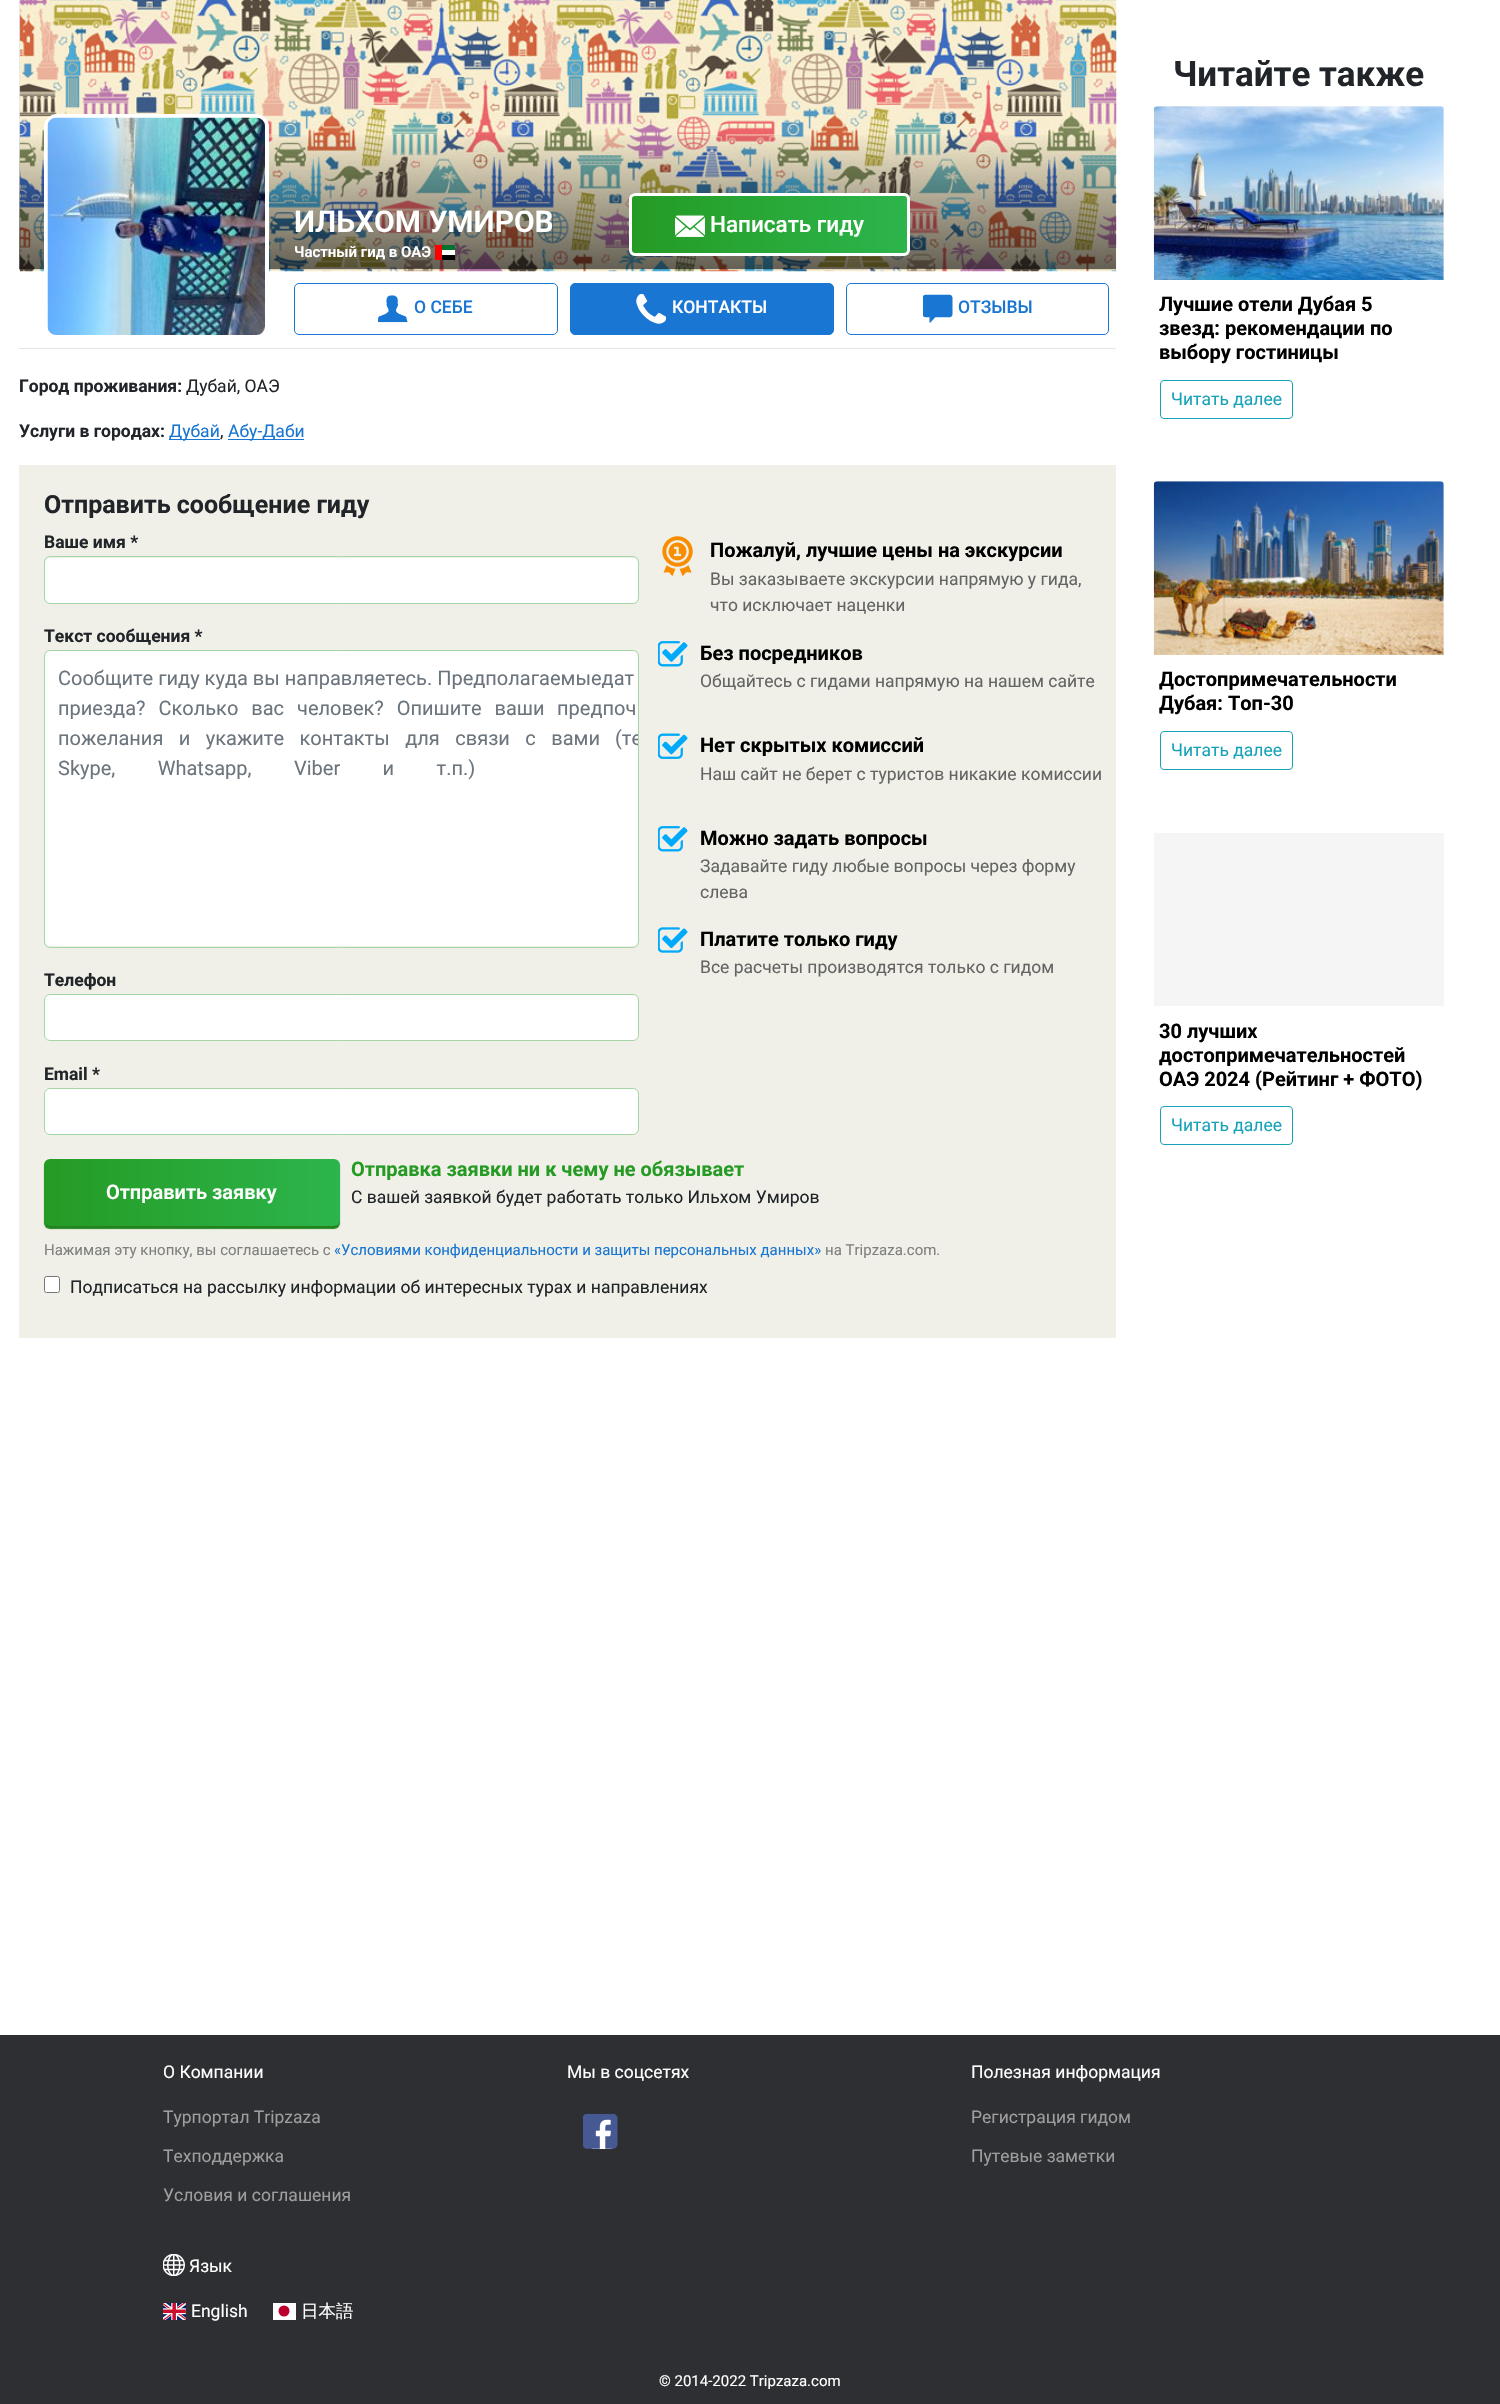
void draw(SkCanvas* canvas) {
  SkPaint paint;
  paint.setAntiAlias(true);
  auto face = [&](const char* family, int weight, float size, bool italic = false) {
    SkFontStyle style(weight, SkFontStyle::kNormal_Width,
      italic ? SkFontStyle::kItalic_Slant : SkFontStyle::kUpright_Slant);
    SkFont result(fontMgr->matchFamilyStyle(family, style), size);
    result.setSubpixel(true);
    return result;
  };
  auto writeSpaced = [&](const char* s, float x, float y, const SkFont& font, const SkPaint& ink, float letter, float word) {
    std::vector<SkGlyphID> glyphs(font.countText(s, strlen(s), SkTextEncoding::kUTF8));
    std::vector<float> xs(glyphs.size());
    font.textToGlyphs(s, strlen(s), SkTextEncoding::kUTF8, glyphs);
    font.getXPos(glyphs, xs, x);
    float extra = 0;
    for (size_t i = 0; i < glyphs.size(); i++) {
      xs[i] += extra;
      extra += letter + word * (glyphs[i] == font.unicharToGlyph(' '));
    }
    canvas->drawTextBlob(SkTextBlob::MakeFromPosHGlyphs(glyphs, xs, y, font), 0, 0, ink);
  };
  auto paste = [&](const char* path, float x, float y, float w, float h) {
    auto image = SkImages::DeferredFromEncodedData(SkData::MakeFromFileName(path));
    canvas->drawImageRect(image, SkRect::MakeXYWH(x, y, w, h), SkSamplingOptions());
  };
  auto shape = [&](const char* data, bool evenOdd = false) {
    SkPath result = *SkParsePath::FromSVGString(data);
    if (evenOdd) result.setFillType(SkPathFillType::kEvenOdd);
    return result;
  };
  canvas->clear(0xffffffff);
  paint.setColor(0xffe9e9e9);
  canvas->drawRect(SkRect::MakeXYWH(19, 0, 1, 270), paint);
  paste("img/1.png", 19, 0, 1098, 272);
  {
    const SkColor colors[] = {0x99000000, 0x00000000};
    const float stops[] = {0, 1};
    const SkPoint ends[] = {{568, 269}, {568, 130}};
    paint.setShader(SkGradientShader::MakeLinear(ends, colors, stops, 2, SkTileMode::kClamp));
    paint.setAlpha(255);
  }
  canvas->drawRect(SkRect::MakeXYWH(19, 135, 1097, 134), paint);
  paint.setShader(nullptr);
  paint.setColor(0x1a000000);
  canvas->drawRect(SkRect::MakeXYWH(19, 269, 1097, 1), paint);
  paint.setStroke(true);
  paint.setStrokeWidth(4);
  paint.setColor(0xffffffff);
  canvas->drawRoundRect(SkRect::MakeXYWH(46, 116, 221, 221), 11, 11, paint);
  paste("img/2.png", 47, 117, 218, 218);
  paint.setStroke(false);
  {
    const struct { float x, y, w, h; SkColor color; } items[] = {
      {435, 245, 20, 5, 0xff00732f},
      {435, 250, 20, 5, 0xffffffff},
      {435, 255, 20, 5, 0xff000001},
      {435, 245, 7, 15, 0xffff0000},
    };
    for (auto [x, y, w, h, color] : items) {
      paint.setColor(color);
      canvas->drawRect(SkRect::MakeXYWH(x, y, w, h), paint);
    }
  }
  canvas->save();
  canvas->clipPath(shape("M635 193H904C907.5 193 910 195.5 910 199V250C910 253.5 907.5 256 904 256H635C631.5 256 629 253.5 629 250V199C629 195.5 631.5 193 635 193Z"), true);
  {
    const SkColor colors[] = {0xff2cb54c, 0xff259b24};
    const float stops[] = {0, 1};
    const SkPoint ends[] = {{908, 224}, {631, 224}};
    paint.setShader(SkGradientShader::MakeLinear(ends, colors, stops, 2, SkTileMode::kClamp));
    paint.setAlpha(255);
  }
  canvas->drawRect(SkRect::MakeXYWH(631, 193, 277, 63), paint);
  canvas->restore();
  paint.setStroke(true);
  paint.setStrokeWidth(3);
  paint.setShader(nullptr);
  paint.setColor(0xffffffff);
  canvas->drawRoundRect(SkRect::MakeXYWH(630.5f, 194.5f, 278, 60), 4.5f, 4.5f, paint);
  paste("img/3.png", 675, 215, 30, 22);
  paint.setStroke(false);
  paint.setColor(0xffe6e6e6);
  canvas->drawRect(SkRect::MakeXYWH(19, 348, 1097, 1), paint);
  paint.setStroke(true);
  paint.setStrokeWidth(1);
  paint.setColor(0xff1976d2);
  canvas->drawRoundRect(SkRect::MakeXYWH(294.5f, 283.5f, 263, 51), 4.5f, 4.5f, paint);
  paste("img/4.png", 378, 295, 30, 28);
  paint.setStroke(false);
  canvas->drawRoundRect(SkRect::MakeXYWH(570.5f, 283.5f, 263, 51), 4.5f, 4.5f, paint);
  paint.setStroke(true);
  canvas->drawRoundRect(SkRect::MakeXYWH(570.5f, 283.5f, 263, 51), 4.5f, 4.5f, paint);
  paste("img/5.png", 636, 294, 30, 30);
  canvas->drawRoundRect(SkRect::MakeXYWH(846.5f, 283.5f, 262, 51), 4.5f, 4.5f, paint);
  paste("img/6.png", 923, 294, 30, 29);
  paint.setStroke(false);
  {
    const struct { float x, y, w, h; SkColor color; } items[] = {
      {169, 439, 51, 1, 0xff1976d2},
      {228, 439, 76, 1, 0xff1976d2},
      {19, 465, 1097, 873, 0xfff0f0e8},
    };
    for (auto [x, y, w, h, color] : items) {
      paint.setColor(color);
      canvas->drawRect(SkRect::MakeXYWH(x, y, w, h), paint);
    }
  }
  paint.setColor(0xffffffff);
  canvas->drawRoundRect(SkRect::MakeXYWH(45, 558, 593, 45), 5, 5, paint);
  paint.setStroke(true);
  paint.setColor(0xffa5d6a7);
  canvas->drawRoundRect(SkRect::MakeXYWH(44.5f, 556.5f, 594, 47), 5.5f, 5.5f, paint);
  paint.setStroke(false);
  paint.setColor(0xffffffff);
  canvas->drawRoundRect(SkRect::MakeXYWH(45, 651, 593, 295), 5, 5, paint);
  paint.setStroke(true);
  paint.setColor(0xffa5d6a7);
  canvas->drawRoundRect(SkRect::MakeXYWH(44.5f, 650.5f, 594, 297), 5.5f, 5.5f, paint);
  paint.setStroke(false);
  paint.setColor(0xffffffff);
  canvas->drawRoundRect(SkRect::MakeXYWH(44.5f, 994.5f, 594, 46), 5.5f, 5.5f, paint);
  paint.setStroke(true);
  paint.setColor(0xffa5d6a7);
  canvas->drawRoundRect(SkRect::MakeXYWH(44.5f, 994.5f, 594, 46), 5.5f, 5.5f, paint);
  paint.setStroke(false);
  paint.setColor(0xffffffff);
  canvas->drawRoundRect(SkRect::MakeXYWH(44.5f, 1088.5f, 594, 46), 5.5f, 5.5f, paint);
  paint.setStroke(true);
  paint.setColor(0xffa5d6a7);
  canvas->drawRoundRect(SkRect::MakeXYWH(44.5f, 1088.5f, 594, 46), 5.5f, 5.5f, paint);
  paste("img/7.png", 662, 536, 31, 40);
  paste("img/8.png", 658, 641, 30, 26);
  paste("img/9.png", 658, 733, 30, 26);
  paste("img/8.png", 658, 826, 30, 26);
  paste("img/10.png", 658, 927, 30, 26);
  paint.setStroke(false);
  paint.setColor(0xff21841f);
  paint.setMaskFilter(SkMaskFilter::MakeBlur(kNormal_SkBlurStyle, 0.5f));
  canvas->drawRoundRect(SkRect::MakeXYWH(44, 1161, 296, 68), 6, 6, paint);
  paint.setMaskFilter(nullptr);
  {
    const SkColor colors[] = {0xff2cb54c, 0xff259b24};
    const float stops[] = {0, 1};
    const SkPoint ends[] = {{340, 1193}, {44, 1193}};
    paint.setShader(SkGradientShader::MakeLinear(ends, colors, stops, 2, SkTileMode::kClamp));
    paint.setAlpha(255);
  }
  canvas->drawRoundRect(SkRect::MakeXYWH(44, 1159, 296, 67), 6, 6, paint);
  paint.setShader(nullptr);
  paint.setColor(0xffffffff);
  canvas->drawRoundRect(SkRect::MakeXYWH(44.5f, 1276.5f, 15, 16), 2, 2, paint);
  paint.setStroke(true);
  paint.setColor(0xff767676);
  canvas->drawRoundRect(SkRect::MakeXYWH(44.5f, 1276.5f, 15, 16), 2, 2, paint);
  paint.setStroke(false);
  paint.setColor(0xfff5f5f5);
  canvas->drawRect(SkRect::MakeXYWH(1154, 106, 290, 174), paint);
  paste("img/11.png", 1153, 106, 291, 174);
  paint.setStroke(true);
  paint.setColor(0xff17a2b8);
  canvas->drawRoundRect(SkRect::MakeXYWH(1160.5f, 380.5f, 132, 38), 3.5f, 3.5f, paint);
  paint.setStroke(false);
  paint.setColor(0xfff5f5f5);
  canvas->drawRect(SkRect::MakeXYWH(1154, 481, 290, 174), paint);
  paste("img/12.png", 1153, 481, 291, 174);
  paint.setStroke(true);
  paint.setColor(0xff17a2b8);
  canvas->drawRoundRect(SkRect::MakeXYWH(1160.5f, 731.5f, 132, 38), 3.5f, 3.5f, paint);
  paint.setStroke(false);
  paint.setColor(0xfff5f5f5);
  canvas->drawRect(SkRect::MakeXYWH(1154, 833, 290, 173), paint);
  paint.setStroke(true);
  paint.setColor(0xff17a2b8);
  canvas->drawRoundRect(SkRect::MakeXYWH(1160.5f, 1106.5f, 132, 38), 3.5f, 3.5f, paint);
  paint.setStroke(false);
  paint.setColor(0xff2e2f33);
  canvas->drawRect(SkRect::MakeXYWH(0, 2035, 1500, 369), paint);
  paste("img/13.png", 583, 2114, 35, 35);
  paste("img/14.png", 163, 2254, 22, 22);
  paste("img/15.png", 163, 2303, 23, 17);
  paint.setColor(0xffffffff);
  canvas->drawRect(SkRect::MakeXYWH(273, 2303, 23, 17), paint);
  paint.setColor(0xffbc002d);
  canvas->drawCircle(284, 2311, 5.5f, paint);
  auto f0 = face("Roboto", 600, 30);
  paint.setColor(0xffffffff);
  canvas->drawString("ИЛЬХОМ УМИРОВ", 294, 232, f0, paint);
  auto f1 = face("Roboto", 600, 15);
  canvas->drawString("Частный гид в ОАЭ", 294, 257, f1, paint);
  auto f2 = face("Roboto", 500, 22.5f);
  canvas->drawString("Написать гиду", 710, 232, f2, paint);
  auto f3 = face("Roboto", 500, 17.5f);
  paint.setColor(0xff1976d2);
  canvas->drawString("О СЕБЕ", 414, 313, f3, paint);
  paint.setColor(0xffffffff);
  canvas->drawString("КОНТАКТЫ", 672, 313, f3, paint);
  paint.setColor(0xff1976d2);
  canvas->drawString("ОТЗЫВЫ", 958, 313, f3, paint);
  auto f4 = face("Roboto", 700, 17.5f);
  paint.setColor(0xff212529);
  canvas->drawString("Город проживания:", 19, 392, f4, paint);
  auto f5 = face("Roboto", 400, 17.5f);
  canvas->drawString("Дубай, ОАЭ", 186, 392, f5, paint);
  canvas->drawString("Услуги в городах:", 19, 437, f4, paint);
  paint.setColor(0xff1976d2);
  canvas->drawString("Дубай", 169, 437, f5, paint);
  paint.setColor(0xff212529);
  canvas->drawString(",", 220, 437, f5, paint);
  paint.setColor(0xff1976d2);
  canvas->drawString("Абу-Даби", 228, 437, f5, paint);
  auto f6 = face("Roboto", 700, 25);
  paint.setColor(0xff212529);
  canvas->drawString("Отправить сообщение гиду", 44, 513, f6, paint);
  canvas->drawString("Ваше имя *", 44, 548, f4, paint);
  canvas->drawString("Текст сообщения *", 44, 642, f4, paint);
  auto f7 = face("Roboto", 400, 20);
  paint.setColor(0xff6c757d);
  canvas->drawString("Сообщите гиду куда вы направляетесь. Предполагаемыедат", 58, 685, f7, paint);
  writeSpaced("приезда? Сколько вас человек? Опишите ваши", 58, 715, f7, paint, 0, 8);
  canvas->drawString("предпоч", 557, 715, f7, paint);
  writeSpaced("пожелания и укажите контакты для связи с вами", 58, 745, f7, paint, 0, 10.5f);
  canvas->save();
  canvas->clipPath(shape("M50 651H633C636 651 638 653 638 656V941C638 944 636 946 633 946H50C47 946 45 944 45 941V656C45 653 47 651 50 651Z"), true);
  canvas->drawString("(те", 615, 745, f7, paint);
  canvas->restore();
  writeSpaced("Skype, Whatsapp, Viber и т.п.)", 58, 775, f7, paint, 0, 37.5f);
  paint.setColor(0xff212529);
  canvas->drawString("Телефон", 44, 986, f4, paint);
  canvas->drawString("Email *", 44, 1080, f4, paint);
  auto f8 = face("Roboto", 700, 20);
  paint.setColor(0xff000000);
  canvas->drawString("Пожалуй, лучшие цены на экскурсии", 710, 557, f8, paint);
  paint.setColor(0xff646464);
  canvas->drawString("Вы заказываете экскурсии напрямую у гида,", 710, 585, f5, paint);
  canvas->drawString("что исключает наценки", 710, 611, f5, paint);
  paint.setColor(0xff000000);
  canvas->drawString("Без посредников", 700, 660, f8, paint);
  paint.setColor(0xff646464);
  canvas->drawString("Общайтесь с гидами напрямую на нашем сайте", 700, 687, f5, paint);
  paint.setColor(0xff000000);
  canvas->drawString("Нет скрытых комиссий", 700, 752, f8, paint);
  paint.setColor(0xff646464);
  canvas->drawString("Наш сайт не берет с туристов никакие комиссии", 700, 780, f5, paint);
  paint.setColor(0xff000000);
  canvas->drawString("Можно задать вопросы", 700, 845, f8, paint);
  paint.setColor(0xff646464);
  canvas->drawString("Задавайте гиду любые вопросы через форму", 700, 872, f5, paint);
  canvas->drawString("слева", 700, 898, f5, paint);
  paint.setColor(0xff000000);
  canvas->drawString("Платите только гиду", 700, 946, f8, paint);
  paint.setColor(0xff646464);
  canvas->drawString("Все расчеты производятся только с гидом", 700, 973, f5, paint);
  auto f9 = face("Roboto", 600, 20);
  paint.setColor(0xffffffff);
  canvas->drawString("Отправить заявку", 106, 1199, f9, paint);
  paint.setColor(0xff259b24);
  canvas->drawString("Отправка заявки ни к чему не обязывает", 351, 1176, f8, paint);
  paint.setColor(0xff212529);
  canvas->drawString("C вашей заявкой будет работать только Ильхом Умиров", 351, 1203, f5, paint);
  auto f10 = face("Roboto", 400, 15);
  paint.setColor(0xff808080);
  canvas->drawString("Нажимая эту кнопку, вы соглашаетесь с", 44, 1255, f10, paint);
  paint.setColor(0xff1976d2);
  canvas->drawString("«Условиями конфиденциальности и защиты персональных данных»", 334, 1255, f10, paint);
  paint.setColor(0xff808080);
  canvas->drawString("на Tripzaza.com.", 825, 1255, f10, paint);
  paint.setColor(0xff212529);
  canvas->drawString("Подписаться на рассылку информации об интересных турах и направлениях", 70, 1293, f5, paint);
  auto f11 = face("Roboto", 700, 35);
  canvas->drawString("Читайте также", 1173, 86, f11, paint);
  paint.setColor(0xff000000);
  {
    const struct { const char* s; float x, y; } items[] = {
      {"Лучшие отели Дубая 5", 1159, 311},
      {"звезд: рекомендации по", 1159, 335},
      {"выбору гостиницы", 1159, 359},
    };
    for (auto [s, x, y] : items) {
      canvas->drawString(s, x, y, f8, paint);
    }
  }
  paint.setColor(0xff17a2b8);
  canvas->drawString("Читать далее", 1171, 405, f5, paint);
  paint.setColor(0xff000000);
  canvas->drawString("Достопримечательности", 1159, 686, f8, paint);
  canvas->drawString("Дубая: Топ-30", 1159, 710, f8, paint);
  paint.setColor(0xff17a2b8);
  canvas->drawString("Читать далее", 1171, 756, f5, paint);
  paint.setColor(0xff000000);
  {
    const struct { const char* s; float x, y; } items[] = {
      {"30 лучших", 1159, 1038},
      {"достопримечательностей", 1159, 1062},
      {"ОАЭ 2024 (Рейтинг + ФОТО)", 1159, 1086},
    };
    for (auto [s, x, y] : items) {
      canvas->drawString(s, x, y, f8, paint);
    }
  }
  paint.setColor(0xff17a2b8);
  canvas->drawString("Читать далее", 1171, 1131, f5, paint);
  paint.setColor(0xffffffff);
  canvas->drawString("О Компании", 163, 2078, f5, paint);
  paint.setColor(0xff9e9e9e);
  {
    const struct { const char* s; float x, y; } items[] = {
      {"Турпортал Tripzaza", 163, 2123},
      {"Техподдержка", 163, 2162},
      {"Условия и соглашения", 163, 2201},
    };
    for (auto [s, x, y] : items) {
      canvas->drawString(s, x, y, f5, paint);
    }
  }
  paint.setColor(0xffffffff);
  canvas->drawString("Мы в соцсетях", 567, 2078, f5, paint);
  canvas->drawString("Полезная информация", 971, 2078, f5, paint);
  paint.setColor(0xff9e9e9e);
  canvas->drawString("Регистрация гидом", 971, 2123, f5, paint);
  canvas->drawString("Путевые заметки", 971, 2162, f5, paint);
  paint.setColor(0xffffffff);
  canvas->drawString("Язык", 189, 2272, f5, paint);
  canvas->drawString("English", 191, 2317, f5, paint);
  auto f12 = face("WenQuanYi Zen Hei", 500, 17.5f);
  canvas->drawString("日本語", 301, 2317, f12, paint);
  canvas->drawString("© 2014-2022 Tripzaza.com", 659, 2386, f10, paint);
}
